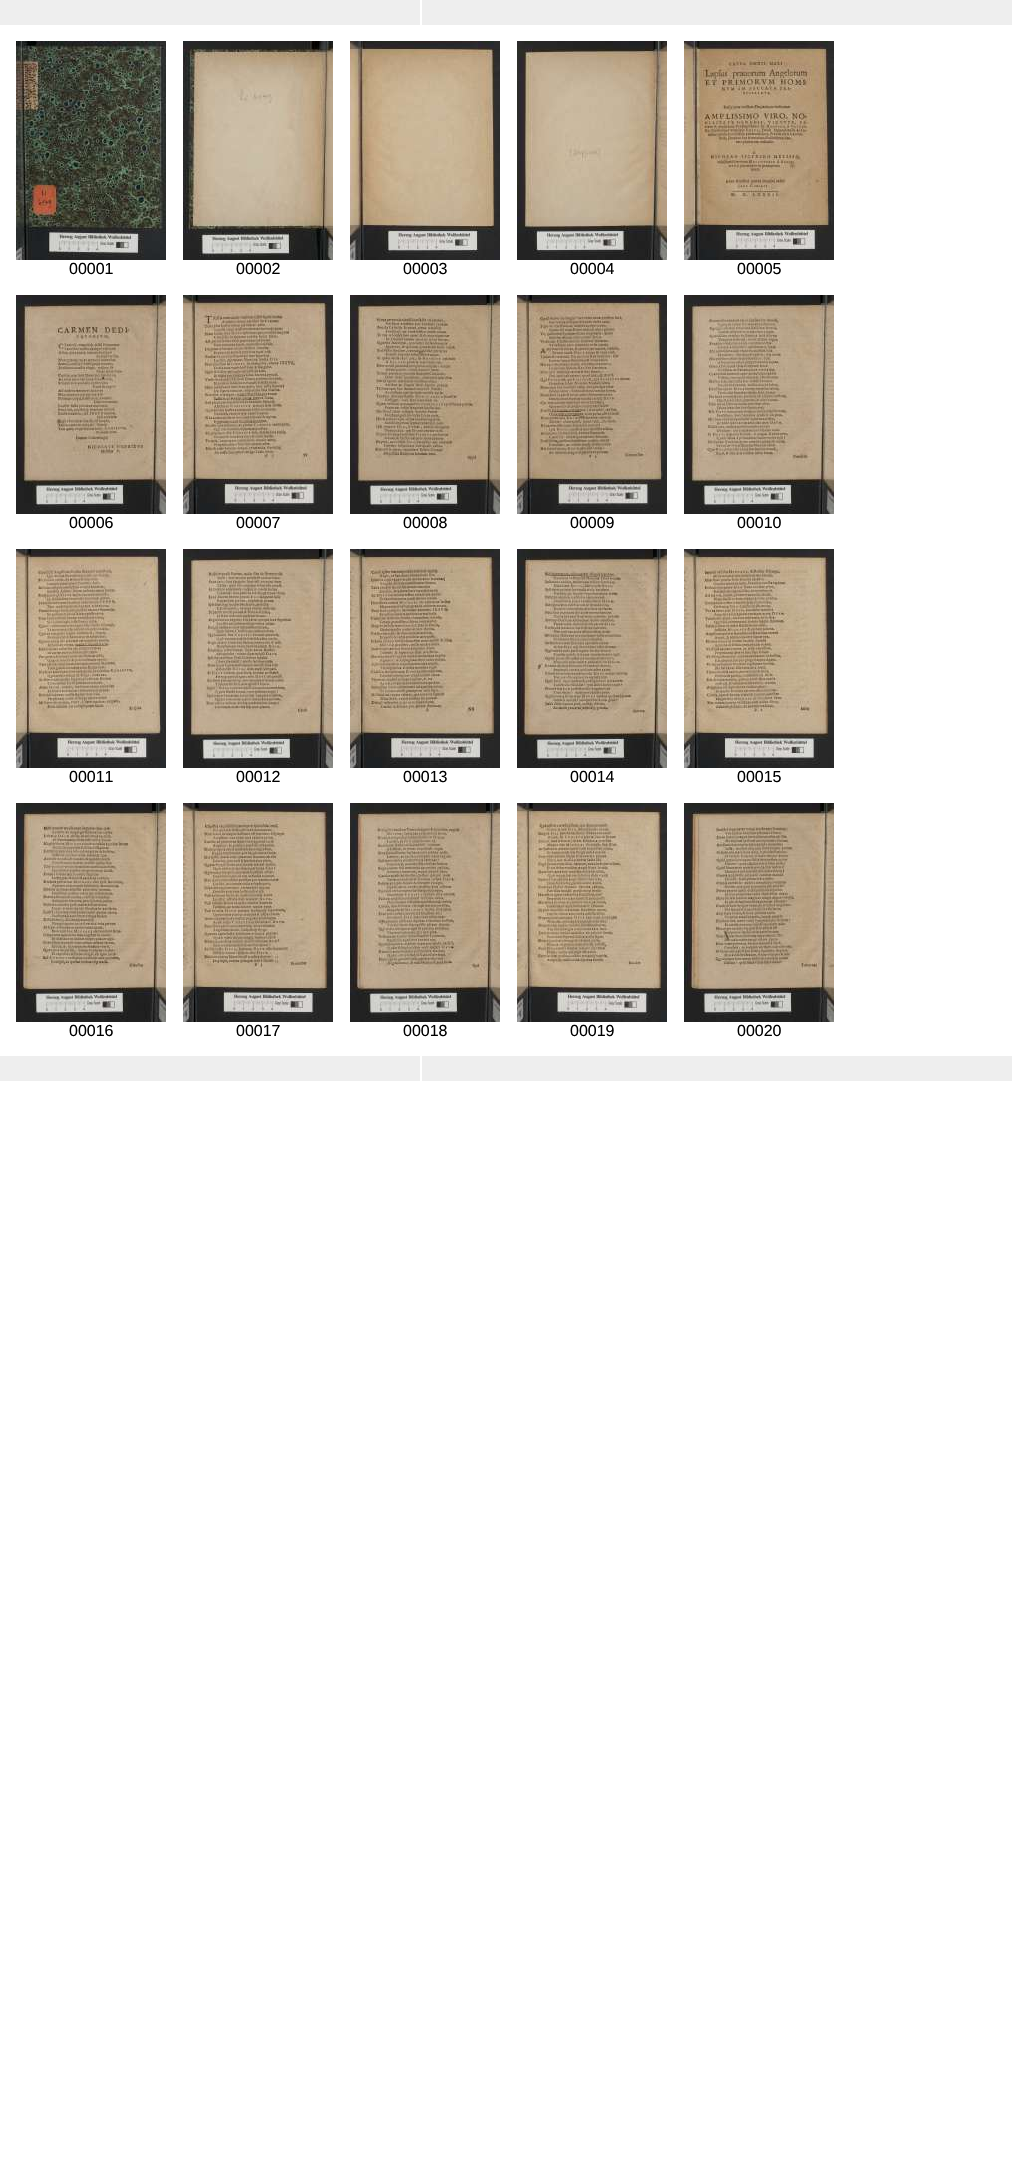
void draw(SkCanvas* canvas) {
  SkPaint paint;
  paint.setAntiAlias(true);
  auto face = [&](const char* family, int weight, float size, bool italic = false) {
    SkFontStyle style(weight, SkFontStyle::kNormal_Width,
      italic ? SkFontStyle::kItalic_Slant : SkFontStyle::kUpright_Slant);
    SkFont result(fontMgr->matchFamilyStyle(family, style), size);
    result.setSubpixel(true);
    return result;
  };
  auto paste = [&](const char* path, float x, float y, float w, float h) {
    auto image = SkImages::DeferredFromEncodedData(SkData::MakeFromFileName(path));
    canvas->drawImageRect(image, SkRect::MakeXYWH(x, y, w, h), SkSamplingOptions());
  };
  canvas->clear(0xffffffff);
  paint.setColor(0xffeeeeee);
  canvas->drawRect(SkRect::MakeXYWH(0, 0, 1012, 25), paint);
  paint.setColor(0xffffffff);
  canvas->drawRect(SkRect::MakeXYWH(420, 0, 2, 25), paint);
  paste("img/1.png", 16, 41, 150, 219);
  paste("img/2.png", 183, 41, 150, 219);
  paste("img/3.png", 350, 41, 150, 219);
  paste("img/4.png", 517, 41, 150, 219);
  paste("img/5.png", 684, 41, 150, 219);
  paste("img/6.png", 16, 295, 150, 219);
  paste("img/7.png", 183, 295, 150, 219);
  paste("img/8.png", 350, 295, 150, 219);
  paste("img/9.png", 517, 295, 150, 219);
  paste("img/10.png", 684, 295, 150, 219);
  paste("img/11.png", 16, 549, 150, 219);
  paste("img/12.png", 183, 549, 150, 219);
  paste("img/13.png", 350, 549, 150, 219);
  paste("img/14.png", 517, 549, 150, 219);
  paste("img/15.png", 684, 549, 150, 219);
  paste("img/16.png", 16, 803, 150, 219);
  paste("img/17.png", 183, 803, 150, 219);
  paste("img/18.png", 350, 803, 150, 219);
  paste("img/19.png", 517, 803, 150, 219);
  paste("img/20.png", 684, 803, 150, 219);
  paint.setColor(0xffeeeeee);
  canvas->drawRect(SkRect::MakeXYWH(0, 1056, 1012, 25), paint);
  paint.setColor(0xffffffff);
  canvas->drawRect(SkRect::MakeXYWH(420, 1056, 2, 25), paint);
  auto f0 = face("Liberation Sans", 400, 16);
  paint.setColor(0xff000000);
  {
    const struct { const char* s; float x, y; } items[] = {
      {"00001", 69, 274},
      {"00002", 236, 274},
      {"00003", 403, 274},
      {"00004", 570, 274},
      {"00005", 737, 274},
      {"00006", 69, 528},
      {"00007", 236, 528},
      {"00008", 403, 528},
      {"00009", 570, 528},
      {"00010", 737, 528},
      {"00011", 69, 782},
      {"00012", 236, 782},
      {"00013", 403, 782},
      {"00014", 570, 782},
      {"00015", 737, 782},
      {"00016", 69, 1036},
      {"00017", 236, 1036},
      {"00018", 403, 1036},
      {"00019", 570, 1036},
      {"00020", 737, 1036},
    };
    for (auto [s, x, y] : items) {
      canvas->drawString(s, x, y, f0, paint);
    }
  }
}
